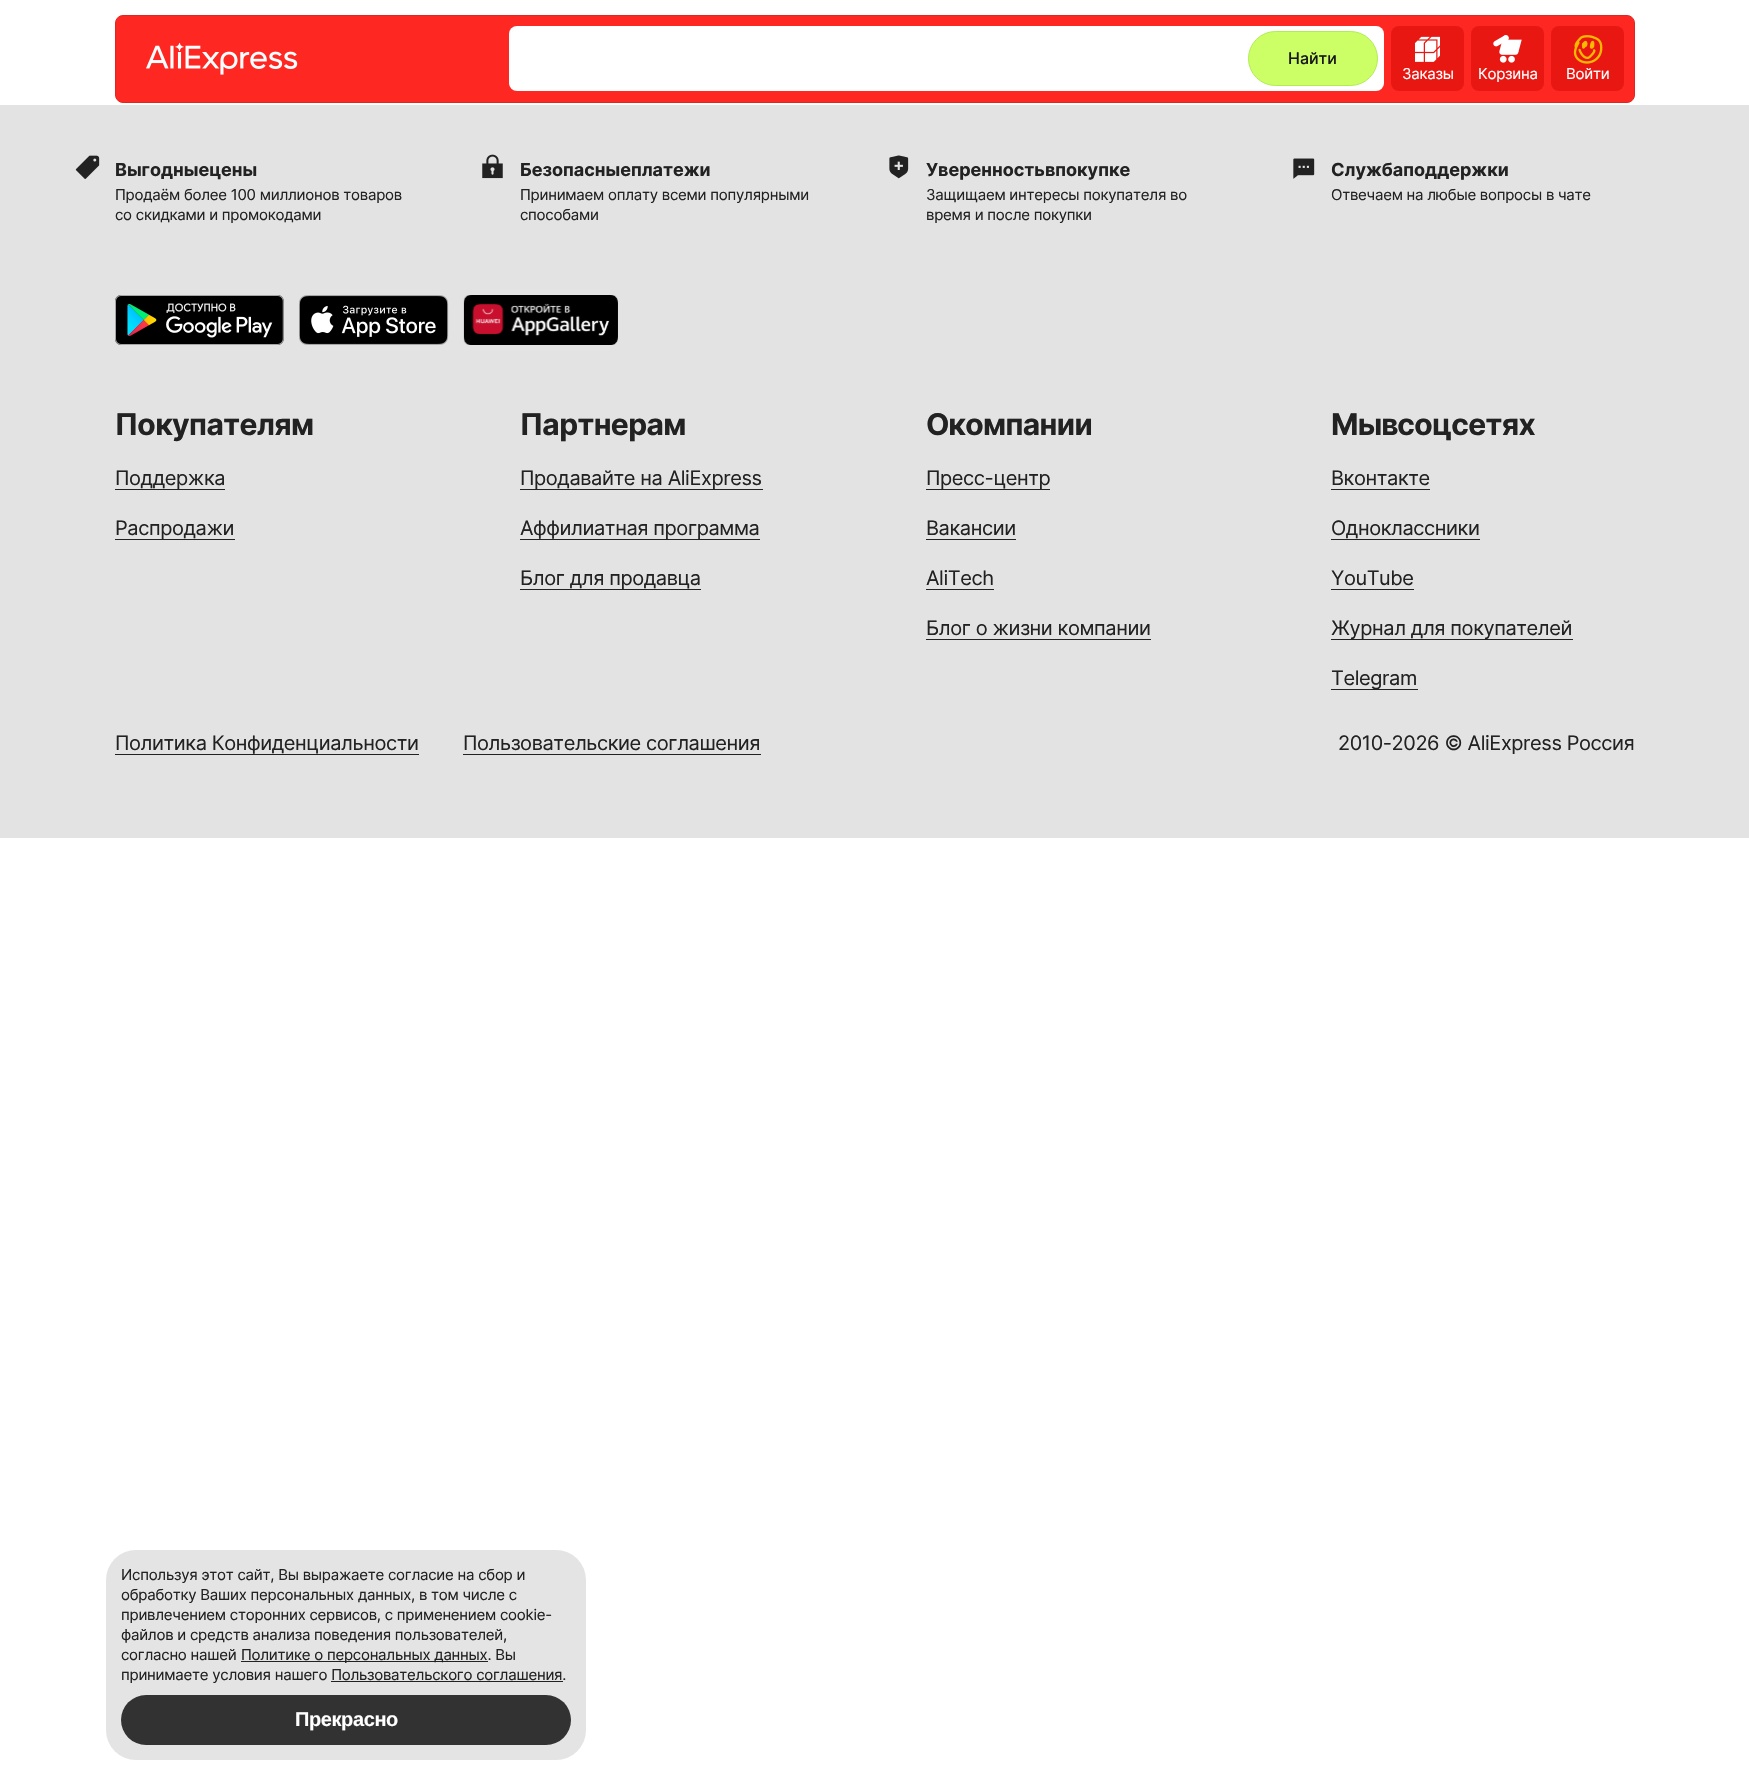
void draw(SkCanvas* canvas) {
  SkPaint paint;
  paint.setAntiAlias(true);
  auto face = [&](const char* family, int weight, float size, bool italic = false) {
    SkFontStyle style(weight, SkFontStyle::kNormal_Width,
      italic ? SkFontStyle::kItalic_Slant : SkFontStyle::kUpright_Slant);
    SkFont result(fontMgr->matchFamilyStyle(family, style), size);
    result.setSubpixel(true);
    return result;
  };
  auto writeSpaced = [&](const char* s, float x, float y, const SkFont& font, const SkPaint& ink, float letter, float word) {
    std::vector<SkGlyphID> glyphs(font.countText(s, strlen(s), SkTextEncoding::kUTF8));
    std::vector<float> xs(glyphs.size());
    font.textToGlyphs(s, strlen(s), SkTextEncoding::kUTF8, glyphs);
    font.getXPos(glyphs, xs, x);
    float extra = 0;
    for (size_t i = 0; i < glyphs.size(); i++) {
      xs[i] += extra;
      extra += letter + word * (glyphs[i] == font.unicharToGlyph(' '));
    }
    canvas->drawTextBlob(SkTextBlob::MakeFromPosHGlyphs(glyphs, xs, y, font), 0, 0, ink);
  };
  auto paste = [&](const char* path, float x, float y, float w, float h) {
    auto image = SkImages::DeferredFromEncodedData(SkData::MakeFromFileName(path));
    canvas->drawImageRect(image, SkRect::MakeXYWH(x, y, w, h), SkSamplingOptions());
  };
  canvas->clear(0xffffffff);
  paint.setColor(0xfffe2722);
  canvas->drawRoundRect(SkRect::MakeXYWH(115.5f, 15.5f, 1519, 87), 7.5f, 7.5f, paint);
  paint.setStroke(true);
  paint.setStrokeWidth(1);
  paint.setColor(0xffde2622);
  canvas->drawRoundRect(SkRect::MakeXYWH(115.5f, 15.5f, 1519, 87), 7.5f, 7.5f, paint);
  paste("img/1.png", 146, 43, 152, 32);
  paint.setStroke(false);
  paint.setColor(0xffffffff);
  canvas->drawRoundRect(SkRect::MakeXYWH(509, 26, 875, 65), 8, 8, paint);
  canvas->drawRoundRect(SkRect::MakeXYWH(509, 29, 875, 60), 8, 8, paint);
  canvas->drawRoundRect(SkRect::MakeXYWH(509, 29, 775, 60), 8, 8, paint);
  paint.setColor(0xffccff66);
  canvas->drawRoundRect(SkRect::MakeXYWH(1248.5f, 31.5f, 129, 54), 27, 27, paint);
  paint.setStroke(true);
  paint.setColor(0xffb2ed50);
  canvas->drawRoundRect(SkRect::MakeXYWH(1248.5f, 31.5f, 129, 54), 27, 27, paint);
  paint.setStroke(false);
  paint.setColor(0xffe81711);
  canvas->drawRoundRect(SkRect::MakeXYWH(1391, 26, 73, 65), 8, 8, paint);
  paste("img/2.png", 1415, 36, 25, 26);
  canvas->drawRoundRect(SkRect::MakeXYWH(1471, 26, 73, 65), 8, 8, paint);
  paste("img/3.png", 1493, 35, 29, 28);
  canvas->drawRoundRect(SkRect::MakeXYWH(1551, 26, 73, 65), 8, 8, paint);
  paste("img/4.png", 1573, 35, 30, 29);
  paint.setColor(0xffe4e4e4);
  canvas->drawRoundRect(SkRect::MakeXYWH(106, 1550, 480, 210), 30, 30, paint);
  paint.setColor(0xff222222);
  canvas->drawRect(SkRect::MakeXYWH(241, 1661, 247, 1), paint);
  canvas->drawRect(SkRect::MakeXYWH(331, 1681, 232, 1), paint);
  paint.setColor(0xff323232);
  canvas->drawRoundRect(SkRect::MakeXYWH(121, 1695, 450, 50), 25, 25, paint);
  paint.setColor(0xffe3e3e3);
  canvas->drawRect(SkRect::MakeXYWH(0, 105, 1749, 733), paint);
  paste("img/5.png", 75, 155, 25, 24);
  paste("img/6.png", 482, 154, 21, 25);
  paste("img/7.png", 889, 155, 20, 24);
  paste("img/8.png", 1293, 158, 22, 21);
  paste("img/9.png", 115, 295, 169, 50);
  paste("img/10.png", 299, 295, 150, 50);
  paste("img/11.png", 463, 295, 155, 50);
  {
    const struct { float x, y, w, h; SkColor color; } items[] = {
      {115, 489, 110, 1, 0xff222222},
      {115, 539, 120, 1, 0xff222222},
      {520, 489, 243, 1, 0xff222222},
      {520, 539, 240, 1, 0xff222222},
      {520, 589, 181, 1, 0xff222222},
      {926, 489, 124, 1, 0xff222222},
      {926, 539, 90, 1, 0xff222222},
      {926, 589, 68, 1, 0xff222222},
      {926, 639, 225, 1, 0xff222222},
      {1331, 489, 99, 1, 0xff222222},
      {1331, 539, 149, 1, 0xff222222},
      {1331, 589, 83, 1, 0xff222222},
      {1331, 639, 242, 1, 0xff222222},
      {1331, 689, 87, 1, 0xff222222},
      {115, 754, 304, 1, 0xff222222},
      {463, 754, 298, 1, 0xff222222},
    };
    for (auto [x, y, w, h, color] : items) {
      paint.setColor(color);
      canvas->drawRect(SkRect::MakeXYWH(x, y, w, h), paint);
    }
  }
  auto f0 = face("Inter", 500, 16);
  paint.setColor(0xff18181b);
  canvas->drawString("Найти", 1288, 64, f0, paint);
  auto f1 = face("Inter", 400, 15);
  paint.setColor(0xffffffff);
  {
    const struct { const char* s; float x, y; } items[] = {
      {"Заказы", 1402, 79},
      {"Корзина", 1478, 79},
      {"Войти", 1566, 79},
    };
    for (auto [s, x, y] : items) {
      writeSpaced(s, x, y, f1, paint, -0.25f, 0);
    }
  }
  paint.setColor(0xff222222);
  {
    const struct { const char* s; float x, y; } items[] = {
      {"Используя этот сайт, Вы выражаете согласие на сбор и", 121, 1580},
      {"обработку Ваших персональных данных, в том числе с", 121, 1600},
      {"привлечением сторонних сервисов, с применением cookie-", 121, 1620},
      {"файлов и средств анализа поведения пользователей,", 121, 1640},
      {"согласно нашей", 121, 1660},
      {"Политике о персональных данных. Вы", 241, 1660},
      {"принимаете условия нашего Пользовательского соглашения.", 121, 1680},
    };
    for (auto [s, x, y] : items) {
      writeSpaced(s, x, y, f1, paint, -0.25f, 0);
    }
  }
  auto f2 = face("Liberation Sans", 700, 20);
  paint.setColor(0xffffffff);
  writeSpaced("Прекрасно", 295, 1726, f2, paint, -0.4f, 0);
  auto f3 = face("Inter", 700, 18);
  paint.setColor(0xff222222);
  canvas->drawString("Выгодные цены", 115, 176, f3, paint);
  writeSpaced("Продаём более 100 миллионов товаров", 115, 200, f1, paint, -0.25f, 0);
  writeSpaced("со скидками и промокодами", 115, 220, f1, paint, -0.25f, 0);
  canvas->drawString("Безопасные платежи", 520, 176, f3, paint);
  writeSpaced("Принимаем оплату всеми популярными", 520, 200, f1, paint, -0.25f, 0);
  writeSpaced("способами", 520, 220, f1, paint, -0.25f, 0);
  canvas->drawString("Уверенность в покупке", 926, 176, f3, paint);
  writeSpaced("Защищаем интересы покупателя во", 926, 200, f1, paint, -0.25f, 0);
  writeSpaced("время и после покупки", 926, 220, f1, paint, -0.25f, 0);
  canvas->drawString("Служба поддержки", 1331, 176, f3, paint);
  writeSpaced("Отвечаем на любые вопросы в чате", 1331, 200, f1, paint, -0.25f, 0);
  auto f4 = face("Inter", 700, 30);
  writeSpaced("Покупателям", 115, 435, f4, paint, -0.6f, 0);
  auto f5 = face("Inter", 400, 20);
  writeSpaced("Поддержка", 115, 485, f5, paint, -0.4f, 0);
  writeSpaced("Распродажи", 115, 535, f5, paint, -0.4f, 0);
  writeSpaced("Партнерам", 520, 435, f4, paint, -0.6f, 0);
  {
    const struct { const char* s; float x, y; } items[] = {
      {"Продавайте на AliExpress", 520, 485},
      {"Аффилиатная программа", 520, 535},
      {"Блог для продавца", 520, 585},
    };
    for (auto [s, x, y] : items) {
      writeSpaced(s, x, y, f5, paint, -0.4f, 0);
    }
  }
  writeSpaced("О компании", 926, 435, f4, paint, -0.6f, 0);
  {
    const struct { const char* s; float x, y; } items[] = {
      {"Пресс-центр", 926, 485},
      {"Вакансии", 926, 535},
      {"AliTech", 926, 585},
      {"Блог о жизни компании", 926, 635},
    };
    for (auto [s, x, y] : items) {
      writeSpaced(s, x, y, f5, paint, -0.4f, 0);
    }
  }
  writeSpaced("Мы в соцсетях", 1331, 435, f4, paint, -0.6f, 0);
  {
    const struct { const char* s; float x, y; } items[] = {
      {"Вконтакте", 1331, 485},
      {"Одноклассники", 1331, 535},
      {"YouTube", 1331, 585},
      {"Журнал для покупателей", 1331, 635},
      {"Telegram", 1331, 685},
      {"Политика Конфиденциальности", 115, 750},
      {"Пользовательские соглашения", 463, 750},
      {"2010-2026 © AliExpress Россия", 1338, 750},
    };
    for (auto [s, x, y] : items) {
      writeSpaced(s, x, y, f5, paint, -0.4f, 0);
    }
  }
}
